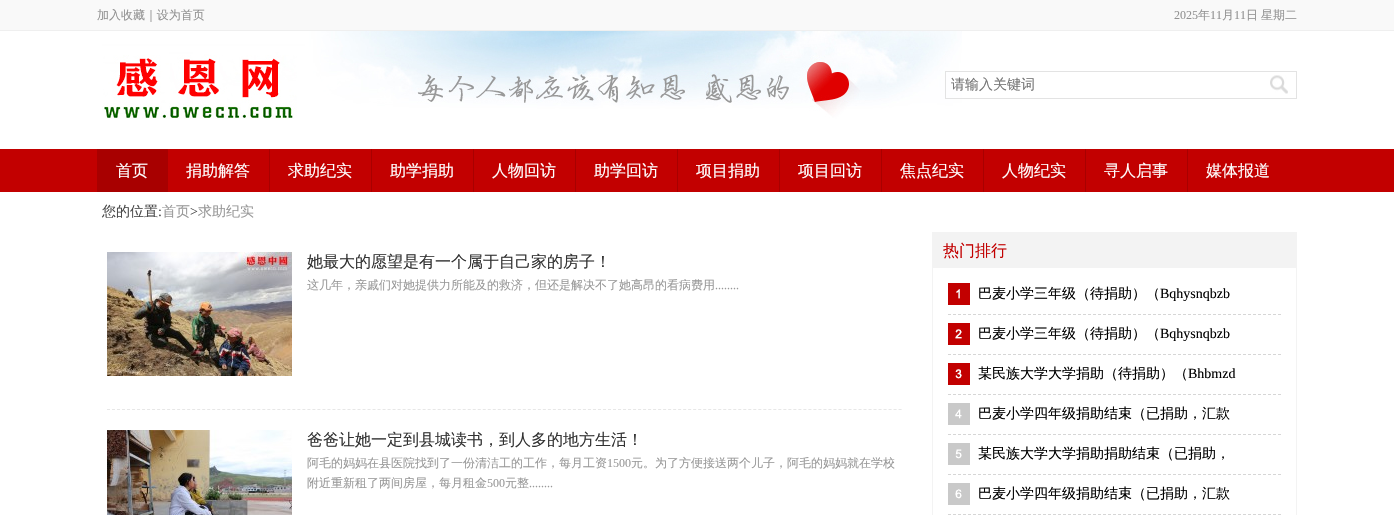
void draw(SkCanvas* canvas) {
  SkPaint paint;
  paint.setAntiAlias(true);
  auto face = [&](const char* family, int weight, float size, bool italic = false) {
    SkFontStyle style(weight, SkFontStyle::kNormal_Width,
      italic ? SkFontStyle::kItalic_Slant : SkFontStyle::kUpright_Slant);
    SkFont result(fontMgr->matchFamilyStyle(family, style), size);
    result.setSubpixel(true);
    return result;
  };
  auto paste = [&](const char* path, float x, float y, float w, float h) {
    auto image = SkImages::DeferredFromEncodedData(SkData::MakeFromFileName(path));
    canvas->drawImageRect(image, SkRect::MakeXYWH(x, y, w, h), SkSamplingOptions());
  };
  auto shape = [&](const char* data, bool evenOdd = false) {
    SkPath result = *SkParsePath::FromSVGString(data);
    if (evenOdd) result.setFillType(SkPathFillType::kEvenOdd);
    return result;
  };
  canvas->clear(0xffffffff);
  paint.setColor(0xfff9f9f9);
  canvas->drawRect(SkRect::MakeXYWH(0, 0, 1394, 30), paint);
  paint.setColor(0xffefefef);
  canvas->drawRect(SkRect::MakeXYWH(0, 30, 1394, 1), paint);
  paste("img/1.png", 102, 31, 860, 88);
  paint.setStroke(true);
  paint.setStrokeWidth(1);
  paint.setColor(0xffe3e3e3);
  canvas->drawRect(SkRect::MakeXYWH(945.5f, 71.5f, 351, 27), paint);
  paste("img/2.png", 1270, 75, 18, 19);
  paint.setStroke(false);
  paint.setColor(0xffc20000);
  canvas->drawRect(SkRect::MakeXYWH(0, 149, 1394, 43), paint);
  paint.setColor(0xffa80000);
  canvas->drawRect(SkRect::MakeXYWH(97, 149, 70, 43), paint);
  paste("img/3.png", 167, 149, 1, 43);
  paste("img/3.png", 269, 149, 1, 43);
  paste("img/3.png", 371, 149, 1, 43);
  paste("img/3.png", 473, 149, 1, 43);
  paste("img/3.png", 575, 149, 1, 43);
  paste("img/3.png", 677, 149, 1, 43);
  paste("img/3.png", 779, 149, 1, 43);
  paste("img/3.png", 881, 149, 1, 43);
  paste("img/3.png", 983, 149, 1, 43);
  paste("img/3.png", 1085, 149, 1, 43);
  paste("img/3.png", 1187, 149, 1, 43);
  paint.setStroke(true);
  paint.setColor(0xffe7e7e7);
  paint.setPathEffect(SkDashPathEffect::Make({{3, 2.01f}}, 0));
  canvas->drawPath(shape("M107 409.5H902"), paint);
  paint.setPathEffect(nullptr);
  paste("img/4.png", 107, 252, 185, 124);
  paste("img/5.png", 107, 430, 185, 85);
  paint.setColor(0xfff3f3f3);
  canvas->drawRect(SkRect::MakeXYWH(932.5f, 232.5f, 364, 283), paint);
  paint.setStroke(false);
  canvas->drawRect(SkRect::MakeXYWH(933, 233, 363, 35), paint);
  paste("img/6.png", 948, 283, 22, 222);
  paint.setStroke(true);
  paint.setColor(0xffd6d6d6);
  paint.setPathEffect(SkDashPathEffect::Make({{3, 2}}, 0));
  canvas->drawPath(shape("M948 314.5H1281"), paint);
  paint.setPathEffect(nullptr);
  paint.setPathEffect(SkDashPathEffect::Make({{3, 2}}, 0));
  canvas->drawPath(shape("M948 354.5H1281"), paint);
  paint.setPathEffect(nullptr);
  paint.setPathEffect(SkDashPathEffect::Make({{3, 2}}, 0));
  canvas->drawPath(shape("M948 394.5H1281"), paint);
  paint.setPathEffect(nullptr);
  paint.setPathEffect(SkDashPathEffect::Make({{3, 2}}, 0));
  canvas->drawPath(shape("M948 434.5H1281"), paint);
  paint.setPathEffect(nullptr);
  paint.setPathEffect(SkDashPathEffect::Make({{3, 2}}, 0));
  canvas->drawPath(shape("M948 474.5H1281"), paint);
  paint.setPathEffect(nullptr);
  paint.setPathEffect(SkDashPathEffect::Make({{3, 2}}, 0));
  canvas->drawPath(shape("M948 514.5H1281"), paint);
  paint.setPathEffect(nullptr);
  auto f0 = face("WenQuanYi Zen Hei", 500, 12);
  paint.setStroke(false);
  paint.setColor(0xff929292);
  canvas->drawString("加入收藏｜设为首页", 97, 19, f0, paint);
  auto f1 = face("Liberation Serif", 400, 12);
  canvas->drawString("2025", 1174, 19, f1, paint);
  canvas->drawString("年", 1198, 19, f0, paint);
  canvas->drawString("11", 1210, 19, f1, paint);
  canvas->drawString("月", 1222, 19, f0, paint);
  canvas->drawString("11", 1234, 19, f1, paint);
  canvas->drawString("日", 1246, 19, f0, paint);
  canvas->drawString("星期二", 1261, 19, f0, paint);
  auto f2 = face("WenQuanYi Zen Hei", 500, 14);
  paint.setColor(0xff757575);
  canvas->drawString("请输入关键词", 951, 89, f2, paint);
  auto f3 = face("WenQuanYi Zen Hei", 500, 16);
  paint.setColor(0xffffffff);
  {
    const struct { const char* s; float x, y; } items[] = {
      {"首页", 116, 176},
      {"捐助解答", 186, 176},
      {"求助纪实", 288, 176},
      {"助学捐助", 390, 176},
      {"人物回访", 492, 176},
      {"助学回访", 594, 176},
      {"项目捐助", 696, 176},
      {"项目回访", 798, 176},
      {"焦点纪实", 900, 176},
      {"人物纪实", 1002, 176},
      {"寻人启事", 1104, 176},
      {"媒体报道", 1206, 176},
    };
    for (auto [s, x, y] : items) {
      canvas->drawString(s, x, y, f3, paint);
    }
  }
  paint.setColor(0xff474747);
  canvas->drawString("您的位置", 102, 216, f2, paint);
  auto f4 = face("Liberation Serif", 400, 14);
  canvas->drawString(":", 158, 216, f4, paint);
  paint.setColor(0xff999999);
  canvas->drawString("首页", 162, 216, f2, paint);
  paint.setColor(0xff474747);
  canvas->drawString(">", 190, 216, f4, paint);
  paint.setColor(0xff999999);
  canvas->drawString("求助纪实", 198, 216, f2, paint);
  paint.setColor(0xff333333);
  canvas->drawString("她最大的愿望是有一个属于自己家的房子！", 307, 267, f3, paint);
  paint.setColor(0xff999999);
  canvas->drawString("这几年，亲戚们对她提供力所能及的救济，但还是解决不了她高昂的看病费用", 307, 289, f0, paint);
  canvas->drawString("........", 715, 289, f1, paint);
  paint.setColor(0xff333333);
  canvas->drawString("爸爸让她一定到县城读书，到人多的地方生活！", 307, 445, f3, paint);
  paint.setColor(0xff999999);
  canvas->drawString("阿毛的妈妈在县医院找到了一份清洁工的工作，每月工资", 307, 467, f0, paint);
  canvas->drawString("1500", 607, 467, f1, paint);
  canvas->drawString("元。为了方便接送两个儿子，阿毛的妈妈就在学校", 631, 467, f0, paint);
  canvas->drawString("附近重新租了两间房屋，每月租金", 307, 487, f0, paint);
  canvas->drawString("500", 487, 487, f1, paint);
  canvas->drawString("元整", 505, 487, f0, paint);
  canvas->drawString("........", 529, 487, f1, paint);
  paint.setColor(0xffc20000);
  canvas->drawString("热门排行", 943, 256, f3, paint);
  paint.setColor(0xff000000);
  canvas->drawString("巴麦小学三年级（待捐助）（", 978, 298, f2, paint);
  canvas->drawString("Bqhysnqbzb", 1160, 298, f4, paint);
  canvas->drawString("巴麦小学三年级（待捐助）（", 978, 338, f2, paint);
  canvas->drawString("Bqhysnqbzb", 1160, 338, f4, paint);
  canvas->drawString("某民族大学大学捐助（待捐助）（", 978, 378, f2, paint);
  canvas->drawString("Bhbmzd", 1188, 378, f4, paint);
  {
    const struct { const char* s; float x, y; } items[] = {
      {"巴麦小学四年级捐助结束（已捐助，汇款", 978, 418},
      {"某民族大学大学捐助捐助结束（已捐助，", 978, 458},
      {"巴麦小学四年级捐助结束（已捐助，汇款", 978, 498},
    };
    for (auto [s, x, y] : items) {
      canvas->drawString(s, x, y, f2, paint);
    }
  }
}
